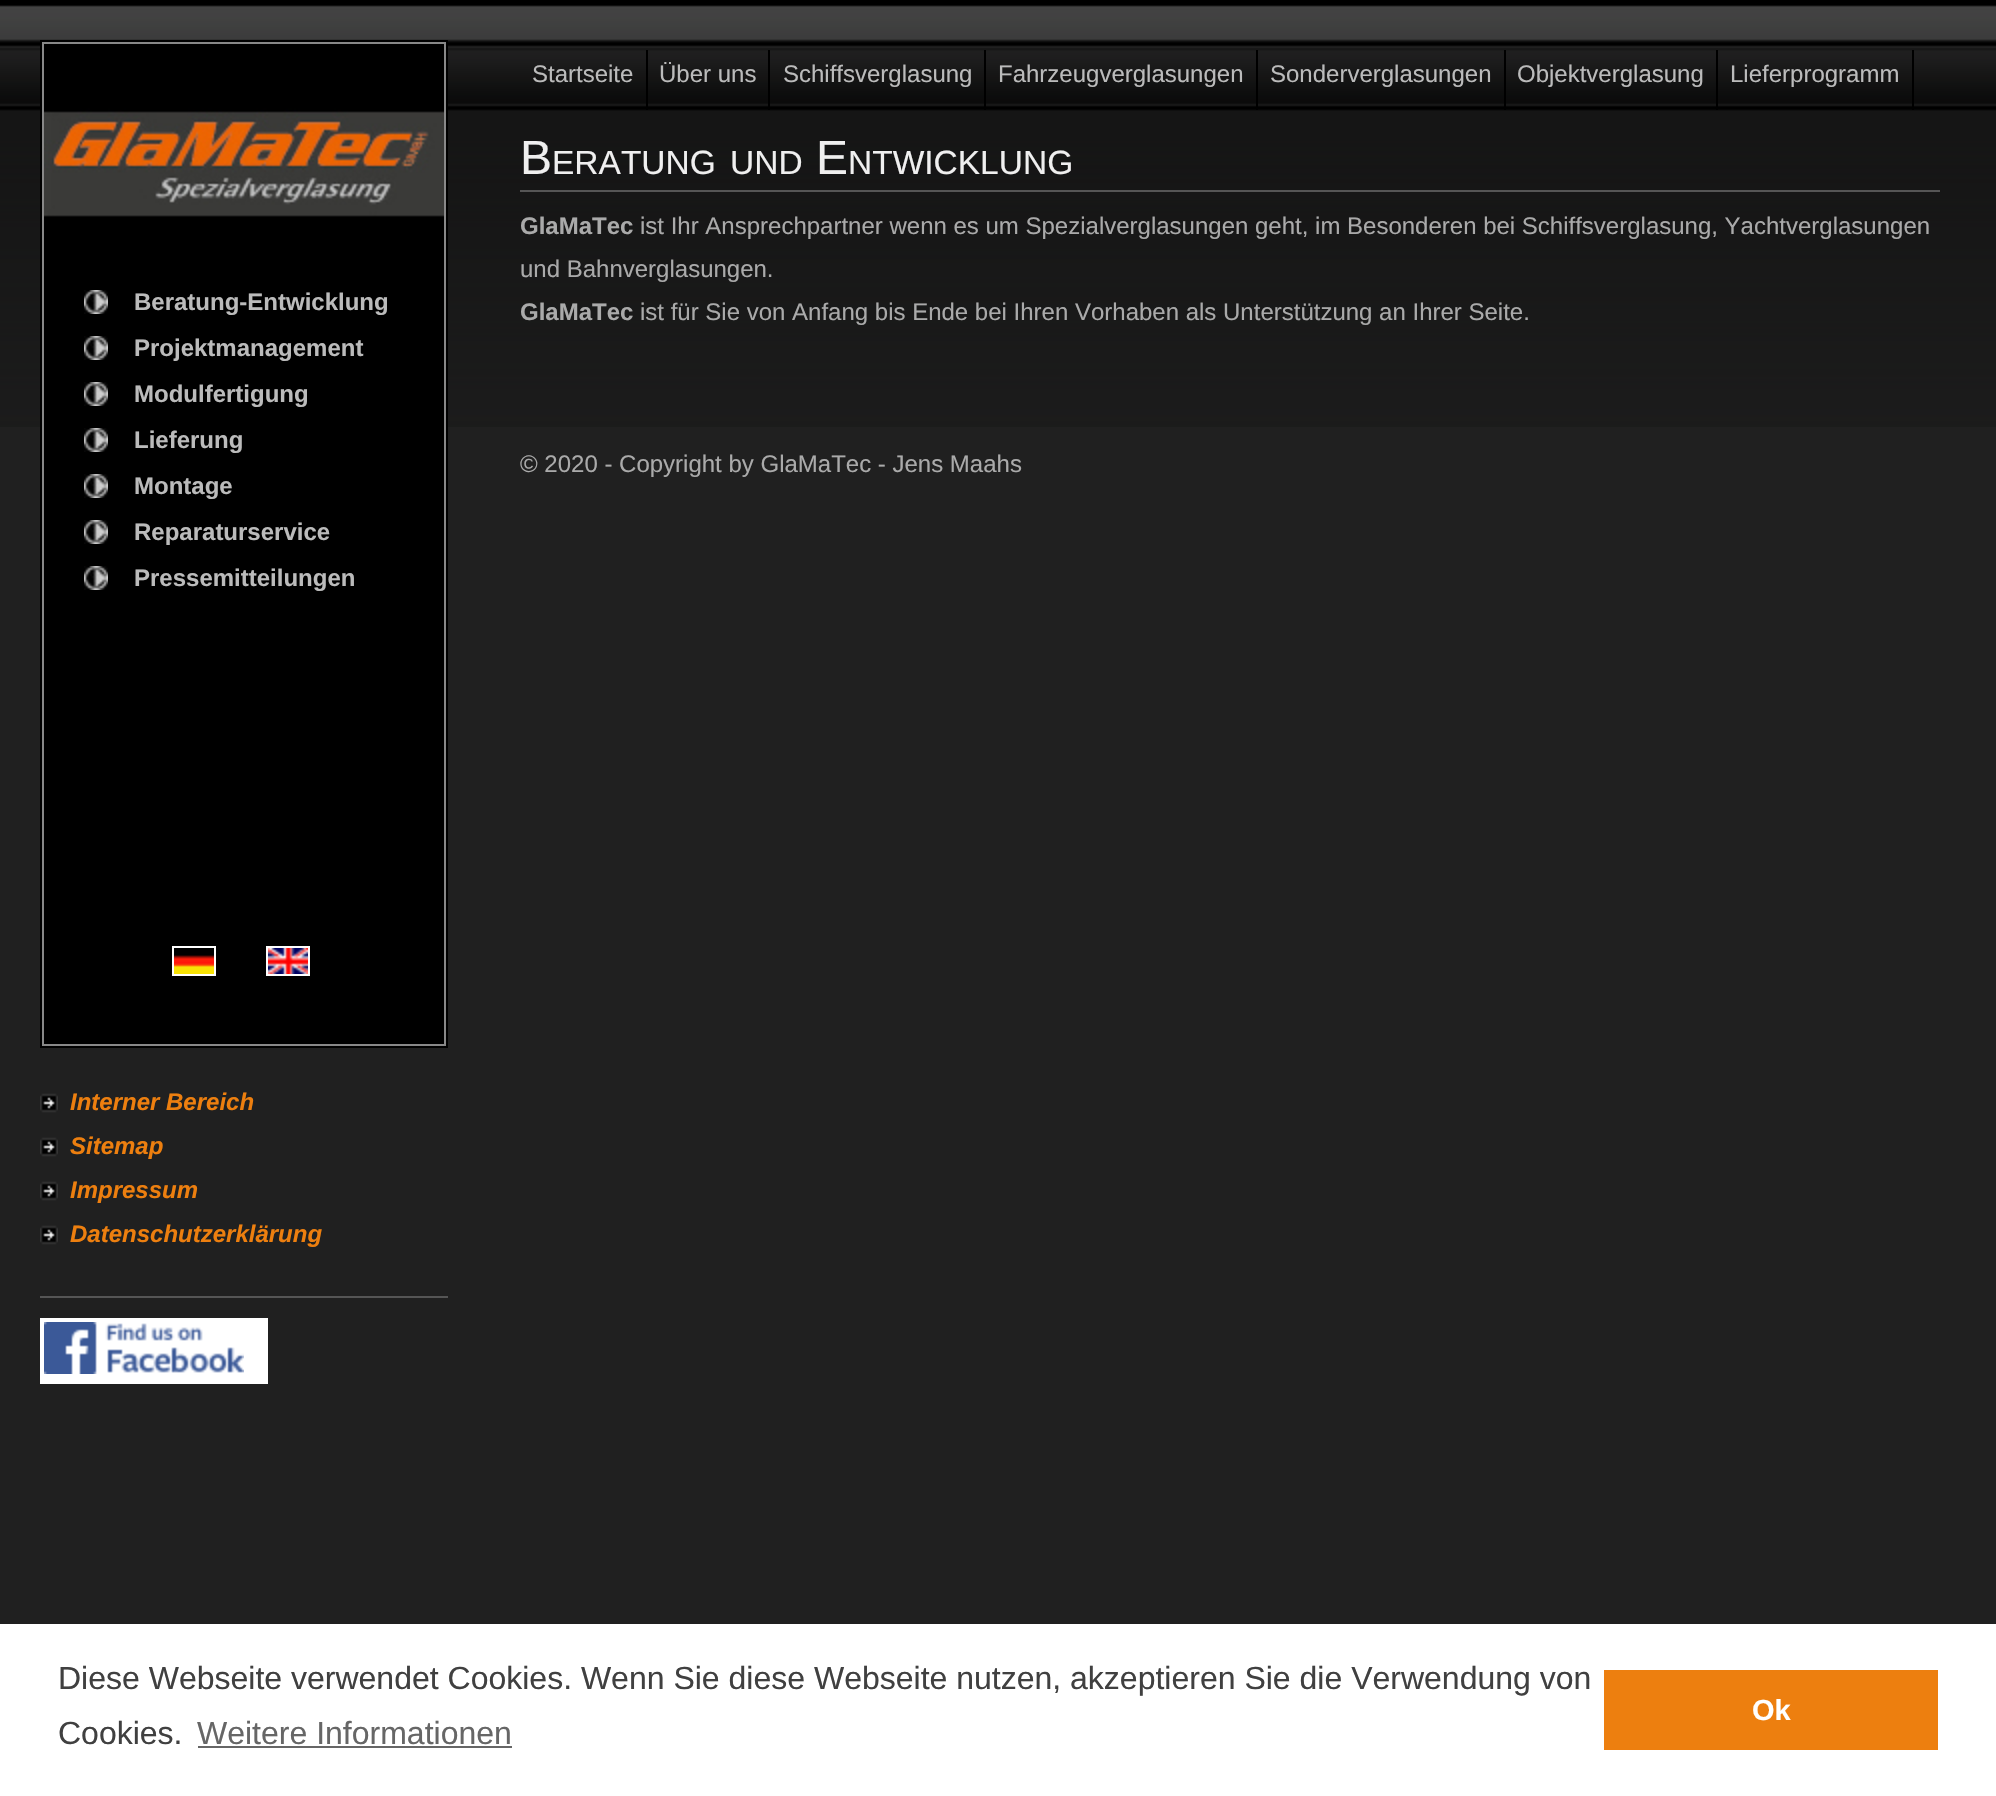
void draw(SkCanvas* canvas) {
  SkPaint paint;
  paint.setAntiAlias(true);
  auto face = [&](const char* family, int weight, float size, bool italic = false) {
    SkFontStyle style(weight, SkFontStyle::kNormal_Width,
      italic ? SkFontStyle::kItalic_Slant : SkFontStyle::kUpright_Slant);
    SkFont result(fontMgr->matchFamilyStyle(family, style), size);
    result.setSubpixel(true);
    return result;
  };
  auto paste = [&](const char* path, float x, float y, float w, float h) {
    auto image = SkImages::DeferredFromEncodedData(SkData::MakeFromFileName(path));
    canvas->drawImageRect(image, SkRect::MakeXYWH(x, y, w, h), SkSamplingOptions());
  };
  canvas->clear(0xff202020);
  paste("img/1.png", 0, 0, 1996, 427);
  {
    const struct { float x, y, w, h; SkColor color; } items[] = {
      {646, 50, 2, 60, 0xff000000},
      {768, 50, 2, 60, 0xff000000},
      {984, 50, 2, 60, 0xff000000},
      {1256, 50, 2, 60, 0xff000000},
      {1504, 50, 2, 60, 0xff000000},
      {1716, 50, 2, 60, 0xff000000},
      {1912, 50, 2, 60, 0xff000000},
      {42, 42, 404, 1004, 0xff888888},
    };
    for (auto [x, y, w, h, color] : items) {
      paint.setColor(color);
      canvas->drawRect(SkRect::MakeXYWH(x, y, w, h), paint);
    }
  }
  paste("img/2.png", 44, 44, 400, 1000);
  paint.setStroke(true);
  paint.setStrokeWidth(2);
  paint.setColor(0xff000000);
  canvas->drawRect(SkRect::MakeXYWH(41, 41, 406, 1006), paint);
  paste("img/3.png", 84, 290, 24, 24);
  paste("img/3.png", 84, 336, 24, 24);
  paste("img/3.png", 84, 382, 24, 24);
  paste("img/3.png", 84, 428, 24, 24);
  paste("img/3.png", 84, 474, 24, 24);
  paste("img/3.png", 84, 520, 24, 24);
  paste("img/3.png", 84, 566, 24, 24);
  paint.setColor(0xffffffff);
  canvas->drawRect(SkRect::MakeXYWH(173, 947, 42, 28), paint);
  paste("img/4.png", 174, 955, 40, 19);
  canvas->drawRect(SkRect::MakeXYWH(267, 947, 42, 28), paint);
  paste("img/5.png", 268, 948, 40, 26);
  paint.setStroke(false);
  paint.setColor(0xff555555);
  canvas->drawRect(SkRect::MakeXYWH(520, 190, 1420, 2), paint);
  canvas->drawRect(SkRect::MakeXYWH(40, 1296, 408, 2), paint);
  paste("img/6.png", 40, 1093, 18, 20);
  paste("img/6.png", 40, 1137, 18, 20);
  paste("img/6.png", 40, 1181, 18, 20);
  paste("img/6.png", 40, 1225, 18, 20);
  paint.setColor(0xffffffff);
  canvas->drawRect(SkRect::MakeXYWH(40, 1318, 228, 66), paint);
  paste("img/7.png", 44, 1322, 200, 52);
  {
    const struct { float x, y, w, h; SkColor color; } items[] = {
      {0, 1624, 1996, 172, 0xffffffff},
      {198, 1746, 314, 2, 0xff666666},
      {1604, 1670, 334, 80, 0xffed7f0f},
    };
    for (auto [x, y, w, h, color] : items) {
      paint.setColor(color);
      canvas->drawRect(SkRect::MakeXYWH(x, y, w, h), paint);
    }
  }
  auto f0 = face("Liberation Sans", 400, 24);
  paint.setColor(0xffbbbbbb);
  {
    const struct { const char* s; float x, y; } items[] = {
      {"Startseite", 532, 82},
      {"Über uns", 659, 82},
      {"Schiffsverglasung", 783, 82},
      {"Fahrzeugverglasungen", 998, 82},
      {"Sonderverglasungen", 1270, 82},
      {"Objektverglasung", 1517, 82},
      {"Lieferprogramm", 1730, 82},
    };
    for (auto [s, x, y] : items) {
      canvas->drawString(s, x, y, f0, paint);
    }
  }
  auto f1 = face("Liberation Sans", 700, 24);
  {
    const struct { const char* s; float x, y; } items[] = {
      {"Beratung-Entwicklung", 134, 310},
      {"Projektmanagement", 134, 356},
      {"Modulfertigung", 134, 402},
      {"Lieferung", 134, 448},
      {"Montage", 134, 494},
      {"Reparaturservice", 134, 540},
      {"Pressemitteilungen", 134, 586},
    };
    for (auto [s, x, y] : items) {
      canvas->drawString(s, x, y, f1, paint);
    }
  }
  auto f2 = face("Liberation Sans", 400, 48);
  paint.setColor(0xffefefef);
  canvas->drawString("B", 520, 174, f2, paint);
  auto f3 = face("Liberation Sans", 400, 33.5f);
  canvas->drawString("ERATUNG", 552, 174, f3, paint);
  canvas->drawString("UND", 730, 174, f3, paint);
  canvas->drawString("E", 816, 174, f2, paint);
  canvas->drawString("NTWICKLUNG", 848, 174, f3, paint);
  paint.setColor(0xffaaaaaa);
  canvas->drawString("GlaMaTec", 520, 234, f1, paint);
  canvas->drawString("ist Ihr Ansprechpartner wenn es um Spezialverglasungen geht, im Besonderen bei Schiffsverglasung, Yachtverglasungen", 640, 234, f0, paint);
  canvas->drawString("und Bahnverglasungen.", 520, 277, f0, paint);
  canvas->drawString("GlaMaTec", 520, 320, f1, paint);
  canvas->drawString("ist für Sie von Anfang bis Ende bei Ihren Vorhaben als Unterstützung an Ihrer Seite.", 640, 320, f0, paint);
  canvas->drawString("© 2020 - Copyright by GlaMaTec - Jens Maahs", 520, 472, f0, paint);
  auto f4 = face("Liberation Sans", 700, 24, true);
  paint.setColor(0xffed7f0f);
  {
    const struct { const char* s; float x, y; } items[] = {
      {"Interner Bereich", 70, 1110},
      {"Sitemap", 70, 1154},
      {"Impressum", 70, 1198},
      {"Datenschutzerklärung", 70, 1242},
    };
    for (auto [s, x, y] : items) {
      canvas->drawString(s, x, y, f4, paint);
    }
  }
  auto f5 = face("Liberation Sans", 400, 32);
  paint.setColor(0xff404040);
  canvas->drawString("Diese Webseite verwendet Cookies. Wenn Sie diese Webseite nutzen, akzeptieren Sie die Verwendung von", 58, 1689, f5, paint);
  canvas->drawString("Cookies.", 58, 1744, f5, paint);
  paint.setColor(0xff666666);
  canvas->drawString("Weitere Informationen", 197, 1744, f5, paint);
  auto f6 = face("Liberation Sans", 700, 29);
  paint.setColor(0xffffffff);
  canvas->drawString("Ok", 1752, 1720, f6, paint);
}
